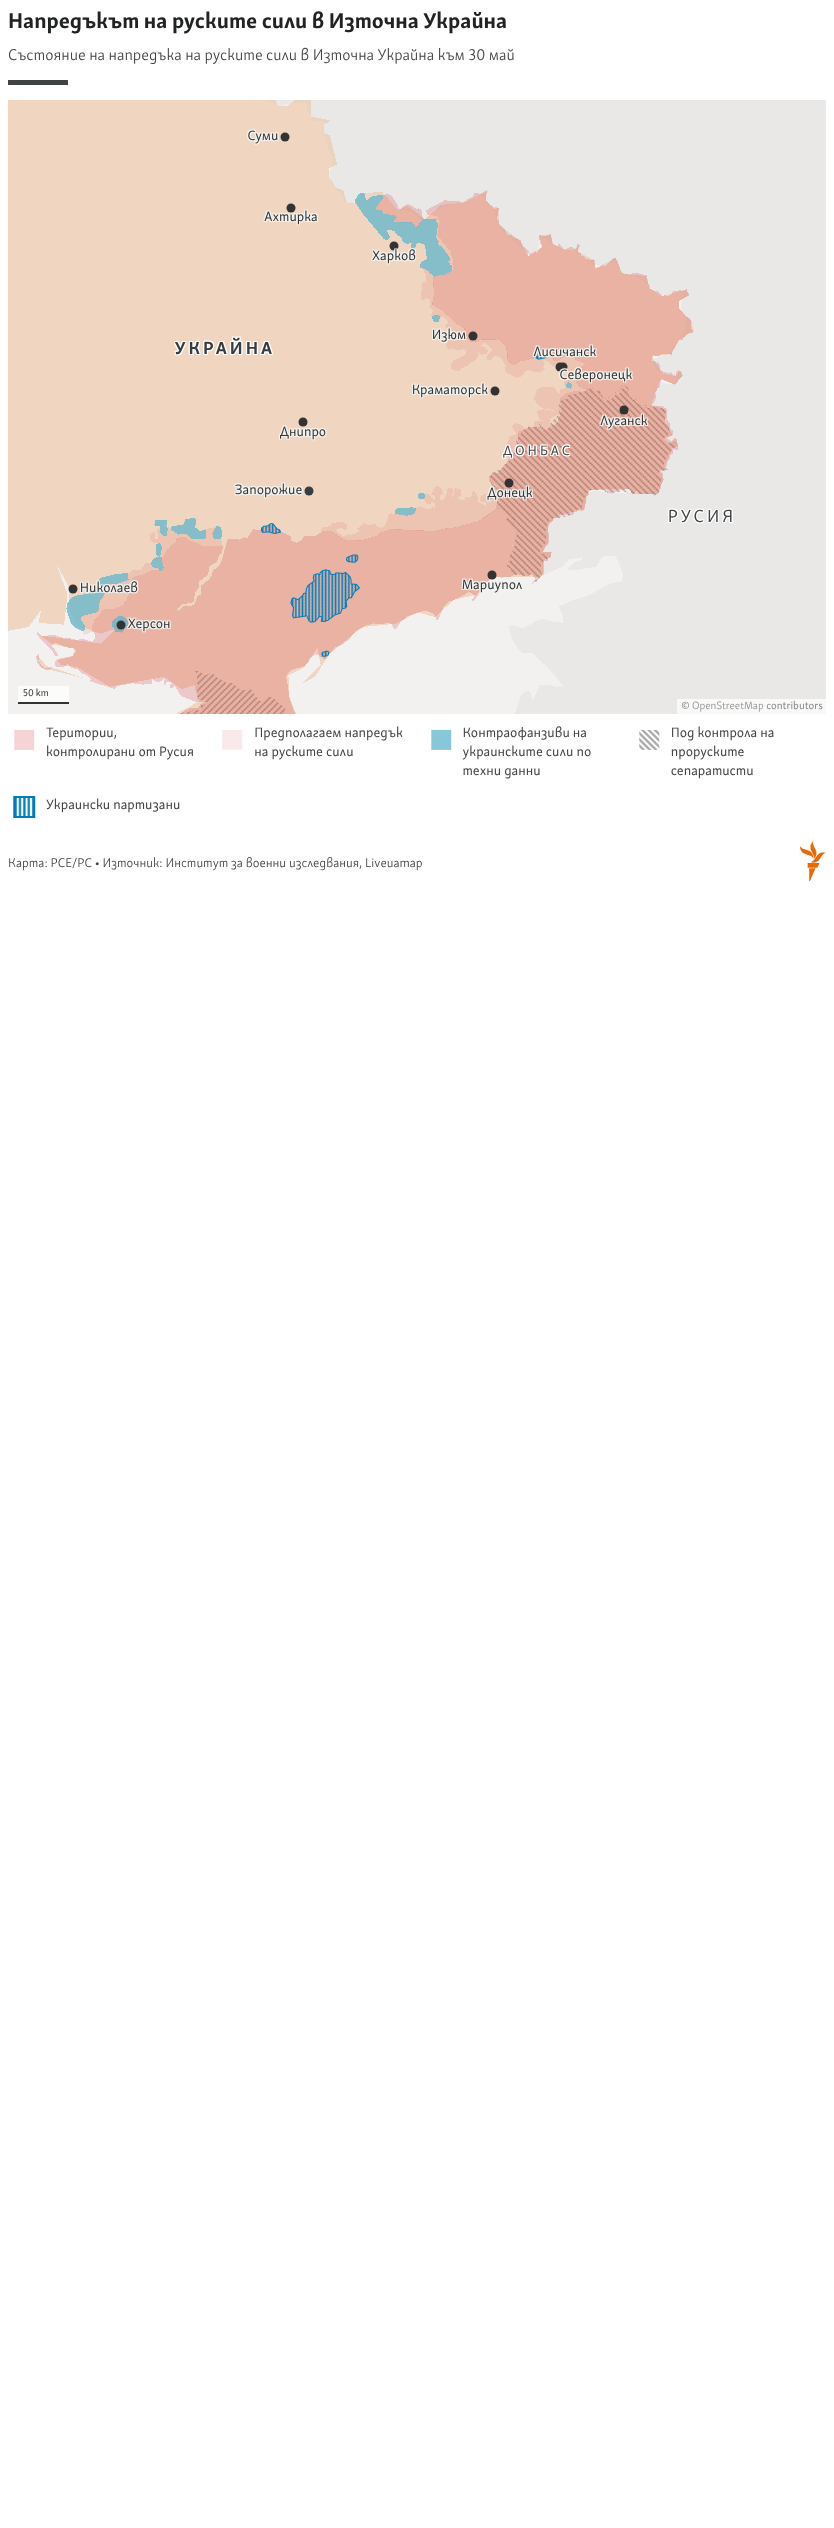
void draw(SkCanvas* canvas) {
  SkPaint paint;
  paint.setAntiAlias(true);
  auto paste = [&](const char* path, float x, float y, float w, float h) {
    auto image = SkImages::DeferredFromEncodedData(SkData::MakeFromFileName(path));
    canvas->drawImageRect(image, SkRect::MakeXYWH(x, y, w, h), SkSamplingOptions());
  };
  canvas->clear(0xffffffff);
  paste("img/1.png", 8, 11, 818, 870);
}
